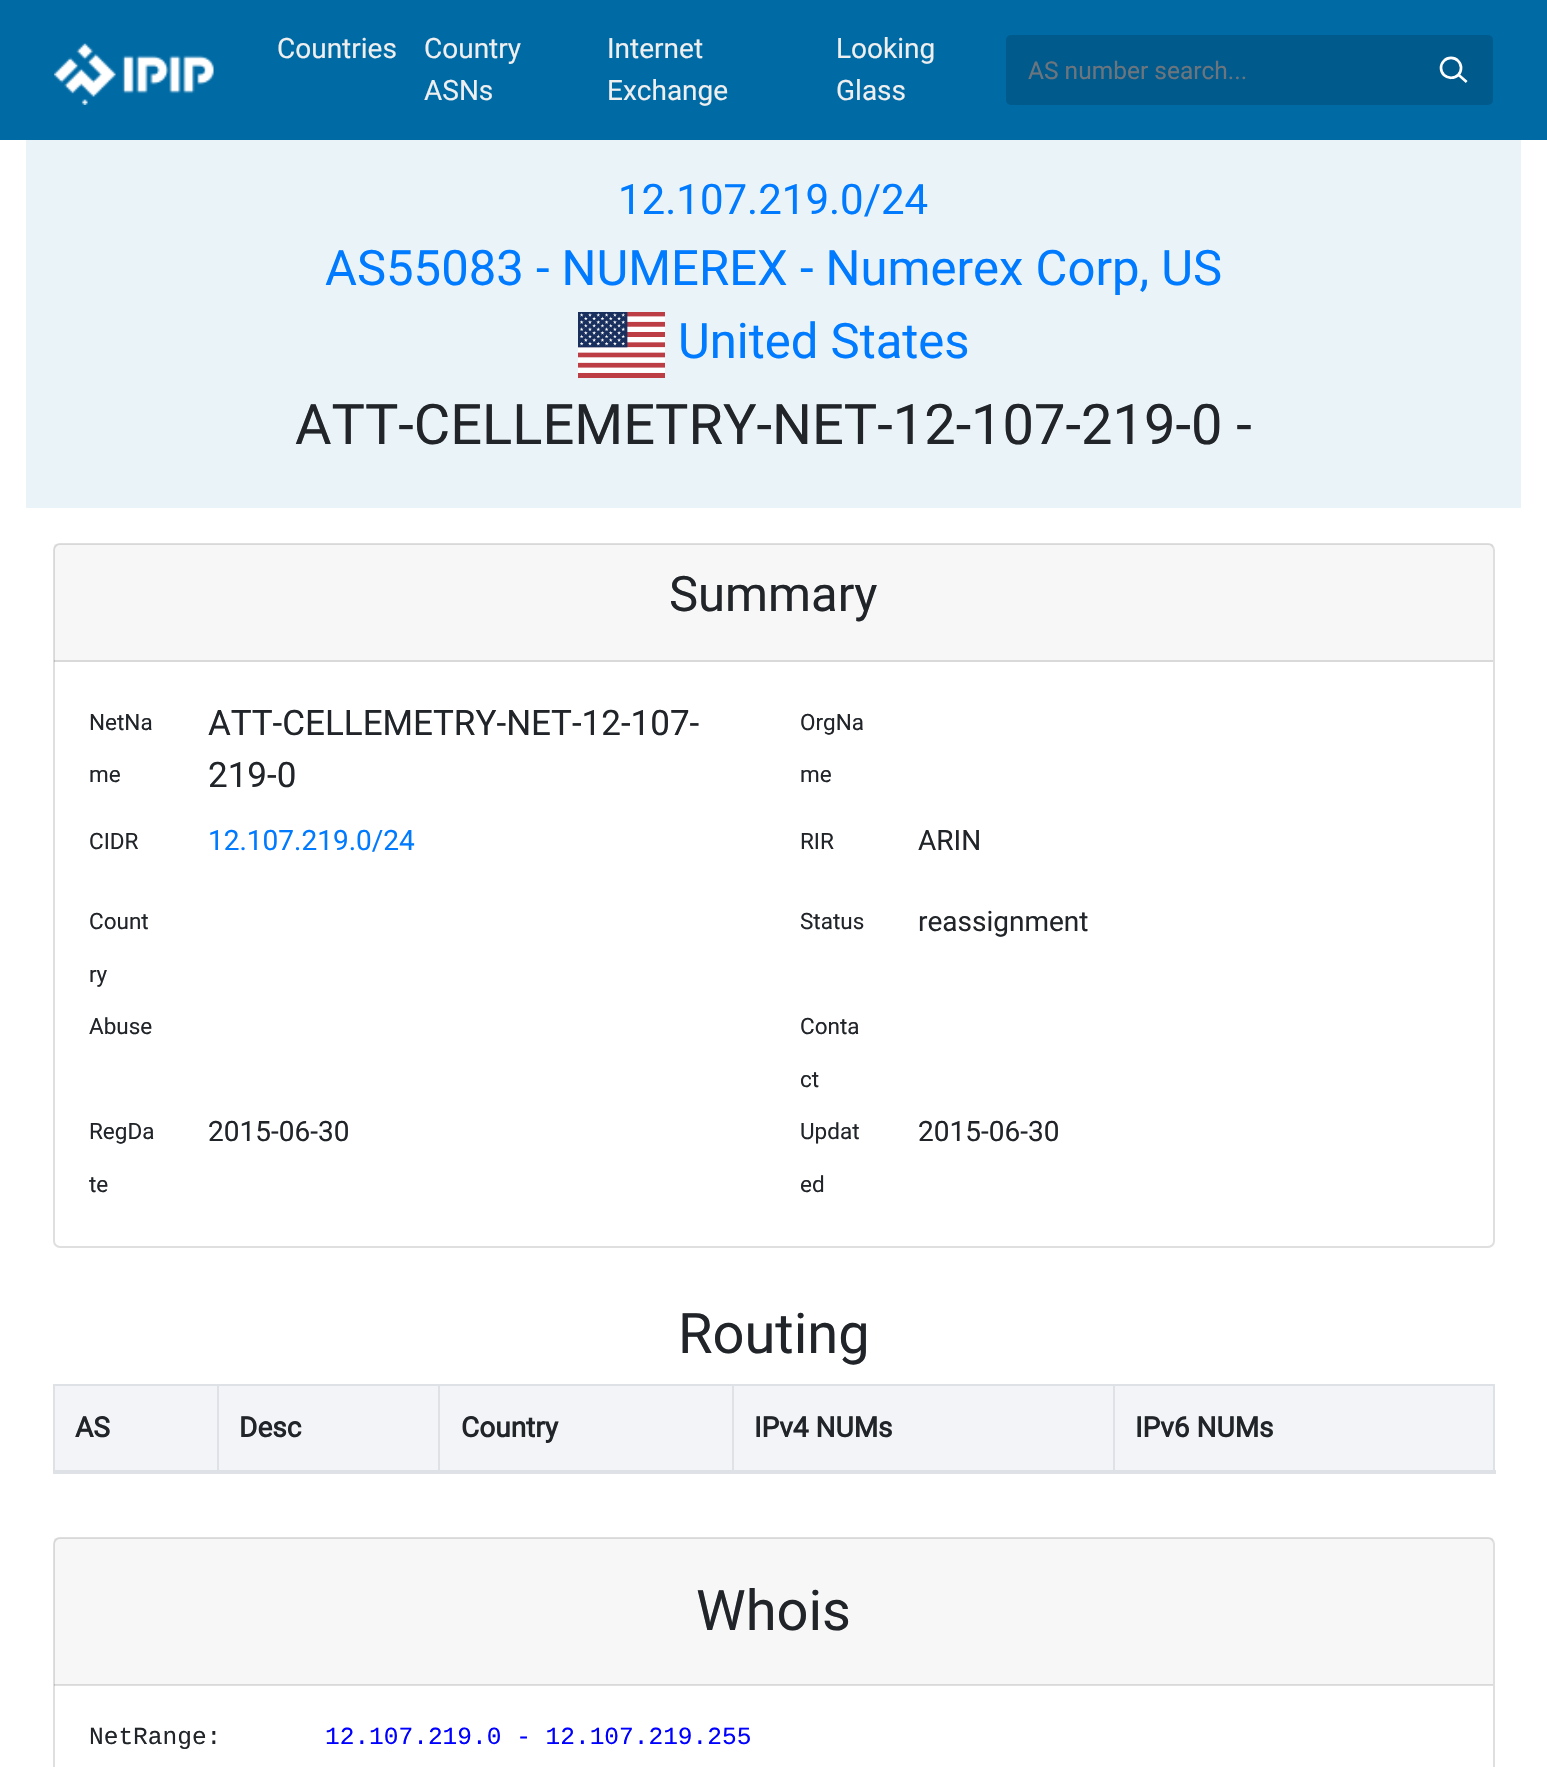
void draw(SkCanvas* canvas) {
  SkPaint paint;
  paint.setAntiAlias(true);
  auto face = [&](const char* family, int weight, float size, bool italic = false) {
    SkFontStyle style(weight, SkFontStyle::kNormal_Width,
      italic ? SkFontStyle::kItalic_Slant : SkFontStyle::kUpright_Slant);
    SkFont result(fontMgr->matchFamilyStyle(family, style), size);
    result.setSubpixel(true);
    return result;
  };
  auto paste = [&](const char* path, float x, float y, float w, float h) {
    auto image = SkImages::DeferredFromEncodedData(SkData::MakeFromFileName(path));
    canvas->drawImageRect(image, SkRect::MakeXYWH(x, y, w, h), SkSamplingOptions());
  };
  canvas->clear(0xffffffff);
  paint.setColor(0xff006aa5);
  canvas->drawRect(SkRect::MakeXYWH(0, 0, 1547, 140), paint);
  paste("img/1.png", 54, 43, 160, 62);
  paint.setColor(0xff005a8c);
  canvas->drawRoundRect(SkRect::MakeXYWH(1006, 35, 487, 70), 5, 5, paint);
  paste("img/2.png", 1439, 56, 29, 27);
  paint.setColor(0xffeaf3f8);
  canvas->drawRect(SkRect::MakeXYWH(26, 140, 1495, 368), paint);
  paste("img/3.png", 578, 312, 87, 66);
  paint.setStroke(true);
  paint.setStrokeWidth(2);
  paint.setColor(0xffdfdfdf);
  canvas->drawRoundRect(SkRect::MakeXYWH(54, 544, 1440, 703), 6, 6, paint);
  paint.setStroke(false);
  {
    const struct { float x, y, w, h; SkColor color; } items[] = {
      {54, 544, 1439, 118, 0x08000000},
      {54, 660, 1439, 2, 0x1f000000},
      {55, 1386, 1438, 84, 0xfff3f4f8},
      {1113, 1384, 382, 2, 0xffdee2e6},
      {1113, 1384, 2, 90, 0xffdee2e6},
      {732, 1384, 383, 2, 0xffdee2e6},
      {732, 1384, 2, 90, 0xffdee2e6},
      {438, 1384, 295, 2, 0xffdee2e6},
      {438, 1384, 2, 90, 0xffdee2e6},
      {217, 1384, 222, 2, 0xffdee2e6},
      {217, 1384, 2, 90, 0xffdee2e6},
      {53, 1384, 166, 2, 0xffdee2e6},
      {53, 1384, 2, 90, 0xffdee2e6},
      {1493, 1384, 2, 90, 0xffdee2e6},
      {53, 1470, 1443, 4, 0xffdee2e6},
    };
    for (auto [x, y, w, h, color] : items) {
      paint.setColor(color);
      canvas->drawRect(SkRect::MakeXYWH(x, y, w, h), paint);
    }
  }
  paint.setStroke(true);
  paint.setColor(0xffdfdfdf);
  canvas->drawRoundRect(SkRect::MakeXYWH(54, 1538, 1440, 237), 6, 6, paint);
  paint.setStroke(false);
  paint.setColor(0x08000000);
  canvas->drawRect(SkRect::MakeXYWH(54, 1538, 1439, 147), paint);
  paint.setColor(0x1f000000);
  canvas->drawRect(SkRect::MakeXYWH(54, 1684, 1439, 2), paint);
  auto f0 = face("Roboto", 400, 28);
  paint.setColor(0xffefefef);
  {
    const struct { const char* s; float x, y; } items[] = {
      {"Countries", 277, 58},
      {"Country", 424, 58},
      {"ASNs", 424, 100},
      {"Internet", 607, 58},
      {"Exchange", 607, 100},
      {"Looking", 836, 58},
      {"Glass", 836, 100},
    };
    for (auto [s, x, y] : items) {
      canvas->drawString(s, x, y, f0, paint);
    }
  }
  auto f1 = face("Roboto", 400, 24.5f);
  paint.setColor(0xff6c757d);
  canvas->drawString("AS number search...", 1028, 79, f1, paint);
  auto f2 = face("Roboto", 400, 42);
  paint.setColor(0xff007bff);
  canvas->drawString("12.107.219.0/24", 618, 214, f2, paint);
  auto f3 = face("Roboto", 400, 49);
  canvas->drawString("AS55083 - NUMEREX - Numerex Corp, US", 325, 285, f3, paint);
  canvas->drawString("United States", 678, 358, f3, paint);
  auto f4 = face("Roboto", 400, 56);
  paint.setColor(0xff212529);
  canvas->drawString("ATT-CELLEMETRY-NET-12-107-219-0 -", 295, 444, f4, paint);
  canvas->drawString("Summary", 669, 611, f3, paint);
  auto f5 = face("Roboto", 400, 22.5f);
  canvas->drawString("NetNa", 89, 730, f5, paint);
  canvas->drawString("me", 89, 782, f5, paint);
  auto f6 = face("Roboto", 400, 35);
  canvas->drawString("ATT-CELLEMETRY-NET-12-107-", 208, 735, f6, paint);
  canvas->drawString("219-0", 208, 787, f6, paint);
  {
    const struct { const char* s; float x, y; } items[] = {
      {"OrgNa", 800, 730},
      {"me", 800, 782},
      {"CIDR", 89, 849},
    };
    for (auto [s, x, y] : items) {
      canvas->drawString(s, x, y, f5, paint);
    }
  }
  paint.setColor(0xff007bff);
  canvas->drawString("12.107.219.0/24", 208, 850, f0, paint);
  paint.setColor(0xff212529);
  canvas->drawString("RIR", 800, 849, f5, paint);
  canvas->drawString("ARIN", 918, 850, f0, paint);
  {
    const struct { const char* s; float x, y; } items[] = {
      {"Count", 89, 929},
      {"ry", 89, 982},
      {"Status", 800, 929},
    };
    for (auto [s, x, y] : items) {
      canvas->drawString(s, x, y, f5, paint);
    }
  }
  canvas->drawString("reassignment", 918, 931, f0, paint);
  {
    const struct { const char* s; float x, y; } items[] = {
      {"Abuse", 89, 1034},
      {"Conta", 800, 1034},
      {"ct", 800, 1087},
      {"RegDa", 89, 1139},
      {"te", 89, 1192},
    };
    for (auto [s, x, y] : items) {
      canvas->drawString(s, x, y, f5, paint);
    }
  }
  canvas->drawString("2015-06-30", 208, 1141, f0, paint);
  canvas->drawString("Updat", 800, 1139, f5, paint);
  canvas->drawString("ed", 800, 1192, f5, paint);
  canvas->drawString("2015-06-30", 918, 1141, f0, paint);
  canvas->drawString("Routing", 678, 1353, f4, paint);
  auto f7 = face("Roboto", 700, 28);
  {
    const struct { const char* s; float x, y; } items[] = {
      {"AS", 75, 1437},
      {"Desc", 239, 1437},
      {"Country", 461, 1437},
      {"IPv4 NUMs", 754, 1437},
      {"IPv6 NUMs", 1135, 1437},
    };
    for (auto [s, x, y] : items) {
      canvas->drawString(s, x, y, f7, paint);
    }
  }
  canvas->drawString("Whois", 696, 1630, f4, paint);
  auto f8 = face("Liberation Mono", 400, 24.5f);
  canvas->drawString("NetRange:", 89, 1744, f8, paint);
  paint.setColor(0xff0000ff);
  canvas->drawString("12.107.219.0 - 12.107.219.255", 325, 1744, f8, paint);
}
